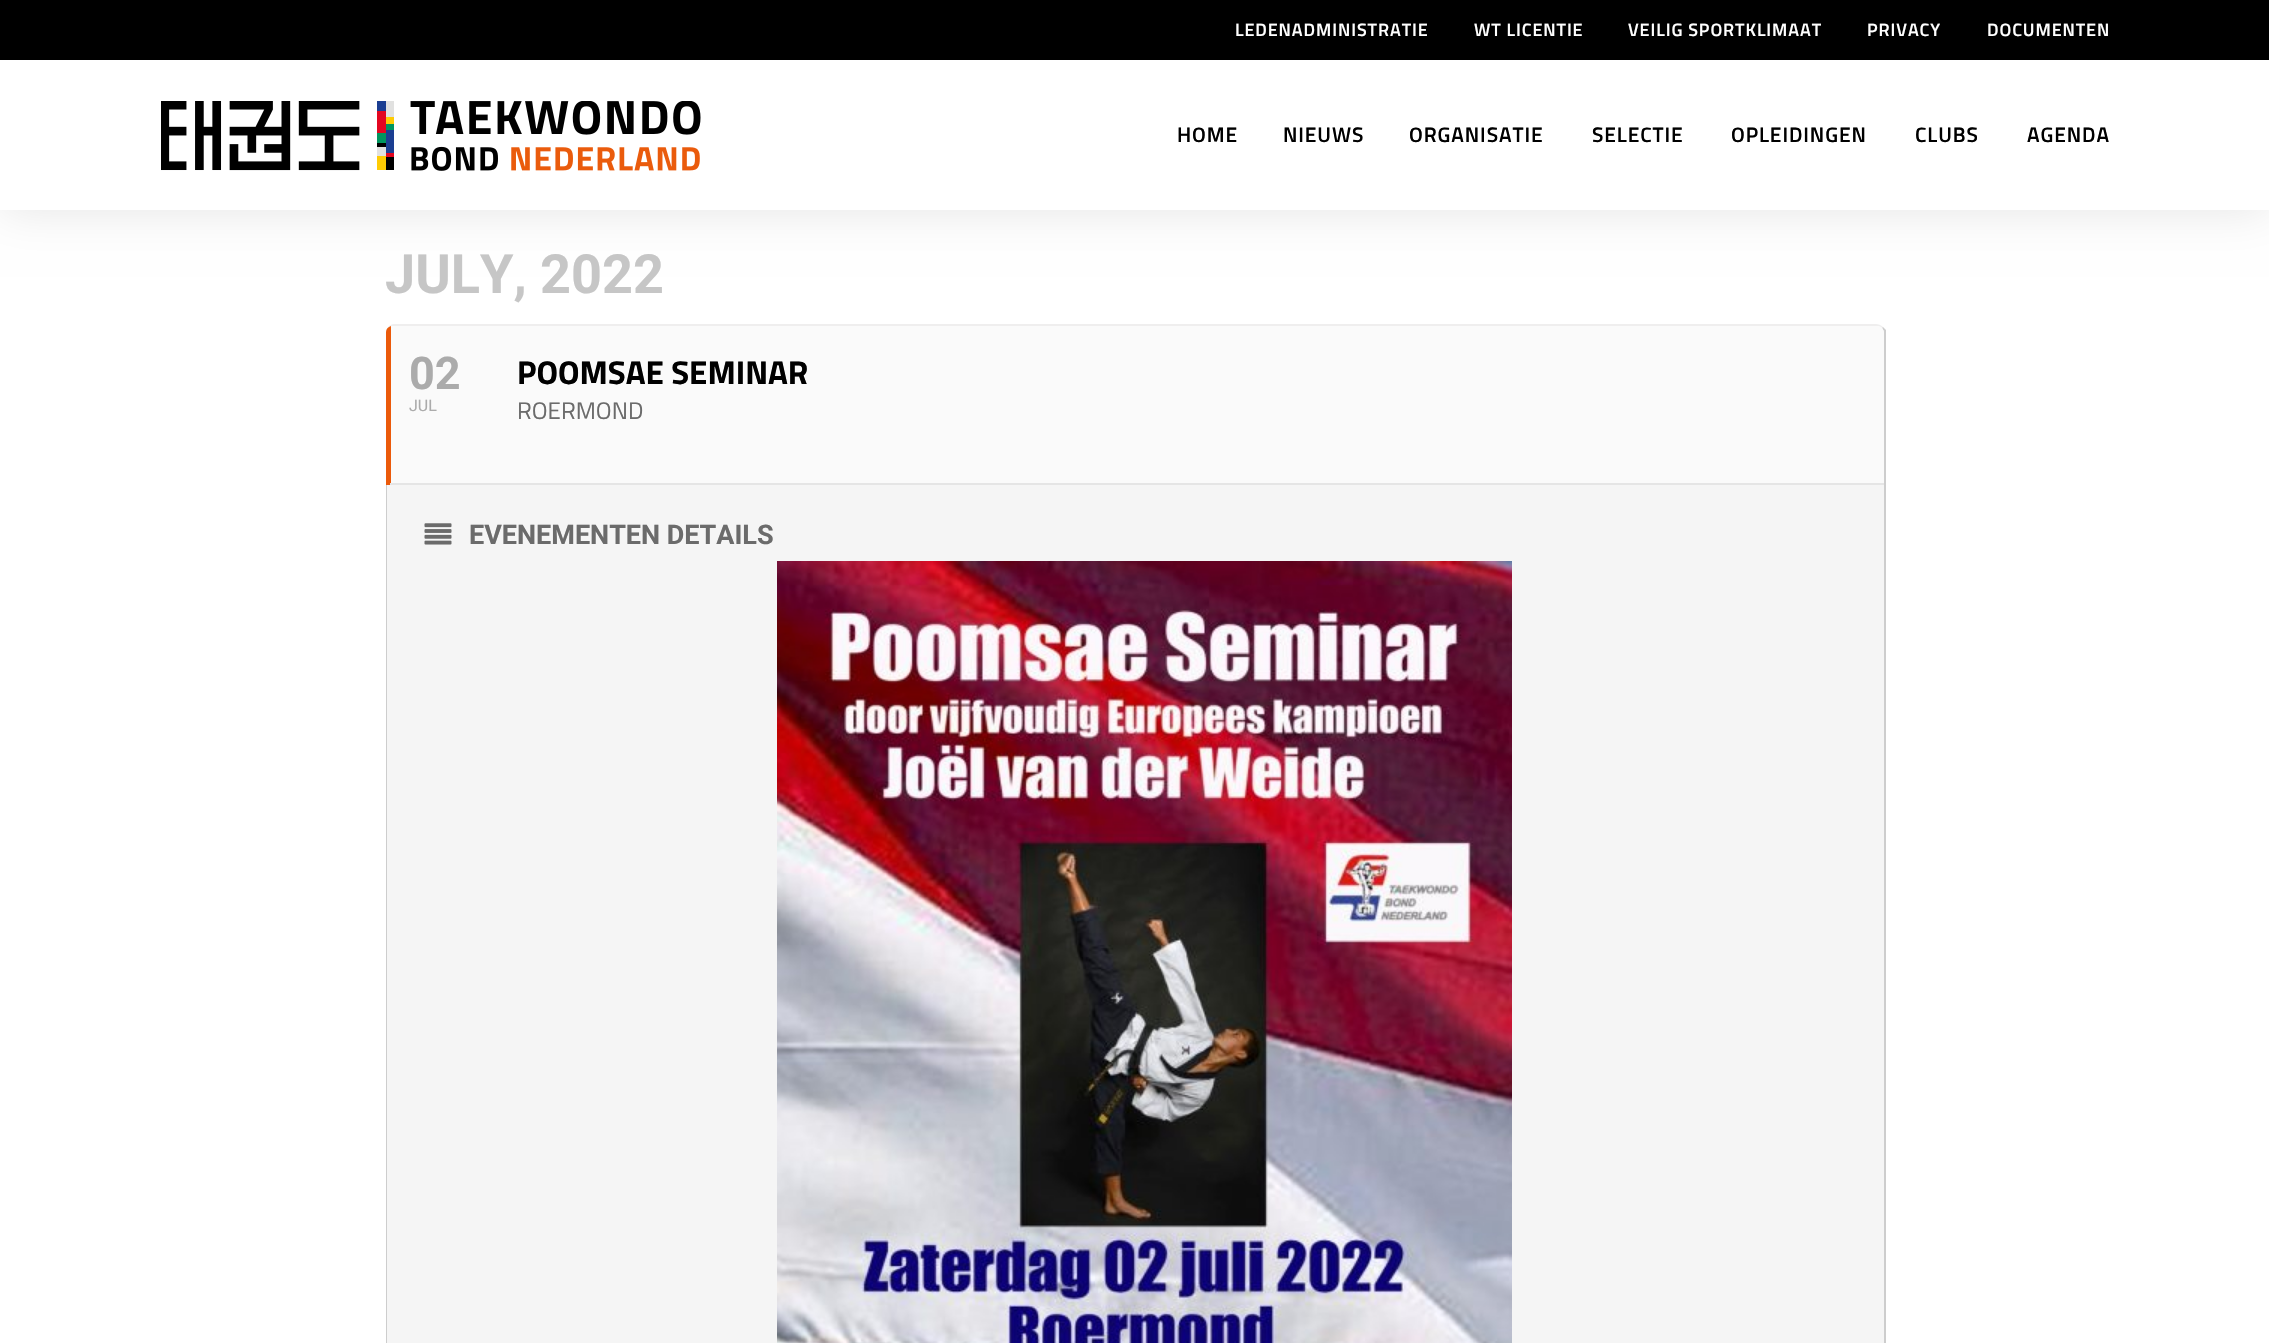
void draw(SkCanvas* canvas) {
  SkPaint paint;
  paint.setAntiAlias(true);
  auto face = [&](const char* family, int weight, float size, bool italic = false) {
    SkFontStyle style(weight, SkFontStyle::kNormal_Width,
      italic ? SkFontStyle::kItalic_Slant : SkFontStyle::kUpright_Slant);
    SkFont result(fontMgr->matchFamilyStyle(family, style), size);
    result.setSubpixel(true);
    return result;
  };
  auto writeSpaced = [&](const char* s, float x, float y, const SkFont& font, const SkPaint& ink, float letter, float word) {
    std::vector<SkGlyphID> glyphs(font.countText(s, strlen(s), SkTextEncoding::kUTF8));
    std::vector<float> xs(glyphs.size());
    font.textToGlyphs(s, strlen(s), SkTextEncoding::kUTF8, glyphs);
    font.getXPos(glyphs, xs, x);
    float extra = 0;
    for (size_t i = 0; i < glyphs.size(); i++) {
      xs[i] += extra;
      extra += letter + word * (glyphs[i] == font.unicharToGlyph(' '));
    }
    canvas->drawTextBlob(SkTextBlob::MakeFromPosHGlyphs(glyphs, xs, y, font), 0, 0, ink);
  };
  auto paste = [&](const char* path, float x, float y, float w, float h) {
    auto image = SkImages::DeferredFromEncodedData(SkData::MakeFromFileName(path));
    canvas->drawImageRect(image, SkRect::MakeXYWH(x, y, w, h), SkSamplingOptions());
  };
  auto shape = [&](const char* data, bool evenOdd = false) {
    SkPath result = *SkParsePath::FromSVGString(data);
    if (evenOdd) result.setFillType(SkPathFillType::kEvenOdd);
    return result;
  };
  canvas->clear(0xffffffff);
  paint.setColor(0xff000000);
  canvas->drawRect(SkRect::MakeXYWH(0, 0, 2269, 60), paint);
  canvas->save();
  canvas->clipPath(shape("M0 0H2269V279H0ZM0 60H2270V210H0Z", true), true);
  paint.setColor(0x1a000000);
  paint.setMaskFilter(SkMaskFilter::MakeBlur(kNormal_SkBlurStyle, 22.5f));
  canvas->drawRect(SkRect::MakeXYWH(0, 60, 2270, 150), paint);
  paint.setMaskFilter(nullptr);
  canvas->restore();
  paste("img/1.png", 161, 101, 540, 70);
  paint.setColor(0xffefeeee);
  canvas->drawPath(shape("M394 324H1876C1878 324 1881 325 1883 327L1882 328C1880 327 1878 326 1876 326H394C390 326 386 329 386 333C386 328 390 324 394 324Z"), paint);
  paint.setColor(0xffcdcdcd);
  canvas->drawPath(shape("M1883 327L1882 328C1883 329 1884 331 1884 333V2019C1884 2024 1881 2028 1876 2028C1880 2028 1884 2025 1886 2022V330C1885 329 1884 328 1883 327Z"), paint);
  paint.setColor(0xfffafafa);
  canvas->drawPath(shape("M386 332V330C387 328 389 327 391 326H1879C1882 327 1884 330 1884 333V485H386Z"), paint);
  paint.setColor(0xffeb5a0a);
  canvas->drawPath(shape("M386 332C386 329 388 327 391 326V485H386Z"), paint);
  paint.setColor(0xffe5e5e5);
  canvas->drawRect(SkRect::MakeXYWH(390, 483, 1494, 2), paint);
  paint.setColor(0xffcdcdcd);
  canvas->drawPath(shape("M386 485H388V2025C387 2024 386 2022 386 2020Z"), paint);
  paint.setColor(0xfff5f5f5);
  canvas->drawRect(SkRect::MakeXYWH(387, 485, 1497, 858), paint);
  paste("img/2.png", 424, 523, 28, 22);
  paste("img/3.png", 777, 561, 735, 782);
  auto f0 = face("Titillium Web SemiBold", 600, 18);
  paint.setColor(0xffffffff);
  {
    const struct { const char* s; float x, y; } items[] = {
      {"LEDENADMINISTRATIE", 1235, 36},
      {"WT LICENTIE", 1474, 36},
      {"VEILIG SPORTKLIMAAT", 1628, 36},
      {"PRIVACY", 1867, 36},
      {"DOCUMENTEN", 1987, 36},
    };
    for (auto [s, x, y] : items) {
      writeSpaced(s, x, y, f0, paint, 0.9f, 0);
    }
  }
  auto f1 = face("Titillium Web SemiBold", 600, 21);
  paint.setColor(0xff000000);
  {
    const struct { const char* s; float x, y; } items[] = {
      {"HOME", 1177, 142},
      {"NIEUWS", 1283, 142},
      {"ORGANISATIE", 1409, 142},
      {"SELECTIE", 1592, 142},
      {"OPLEIDINGEN", 1731, 142},
      {"CLUBS", 1915, 142},
      {"AGENDA", 2027, 142},
    };
    for (auto [s, x, y] : items) {
      writeSpaced(s, x, y, f1, paint, 0.9f, 0);
    }
  }
  auto f2 = face("Roboto", 700, 54);
  paint.setColor(0xffc6c6c6);
  canvas->drawString("JULY, 2022", 385, 293, f2, paint);
  auto f3 = face("Roboto", 700, 45);
  paint.setColor(0xffababab);
  canvas->drawString("02", 409, 389, f3, paint);
  auto f4 = face("Roboto", 400, 16);
  canvas->drawString("JUL", 409, 411, f4, paint);
  auto f5 = face("Titillium Web", 700, 33);
  paint.setColor(0xff000000);
  canvas->drawString("POOMSAE SEMINAR", 517, 384, f5, paint);
  auto f6 = face("Titillium Web", 400, 24);
  paint.setColor(0xff6b6b6b);
  canvas->drawString("ROERMOND", 517, 419, f6, paint);
  auto f7 = face("Roboto", 700, 27);
  canvas->drawString("EVENEMENTEN DETAILS", 469, 544, f7, paint);
}
